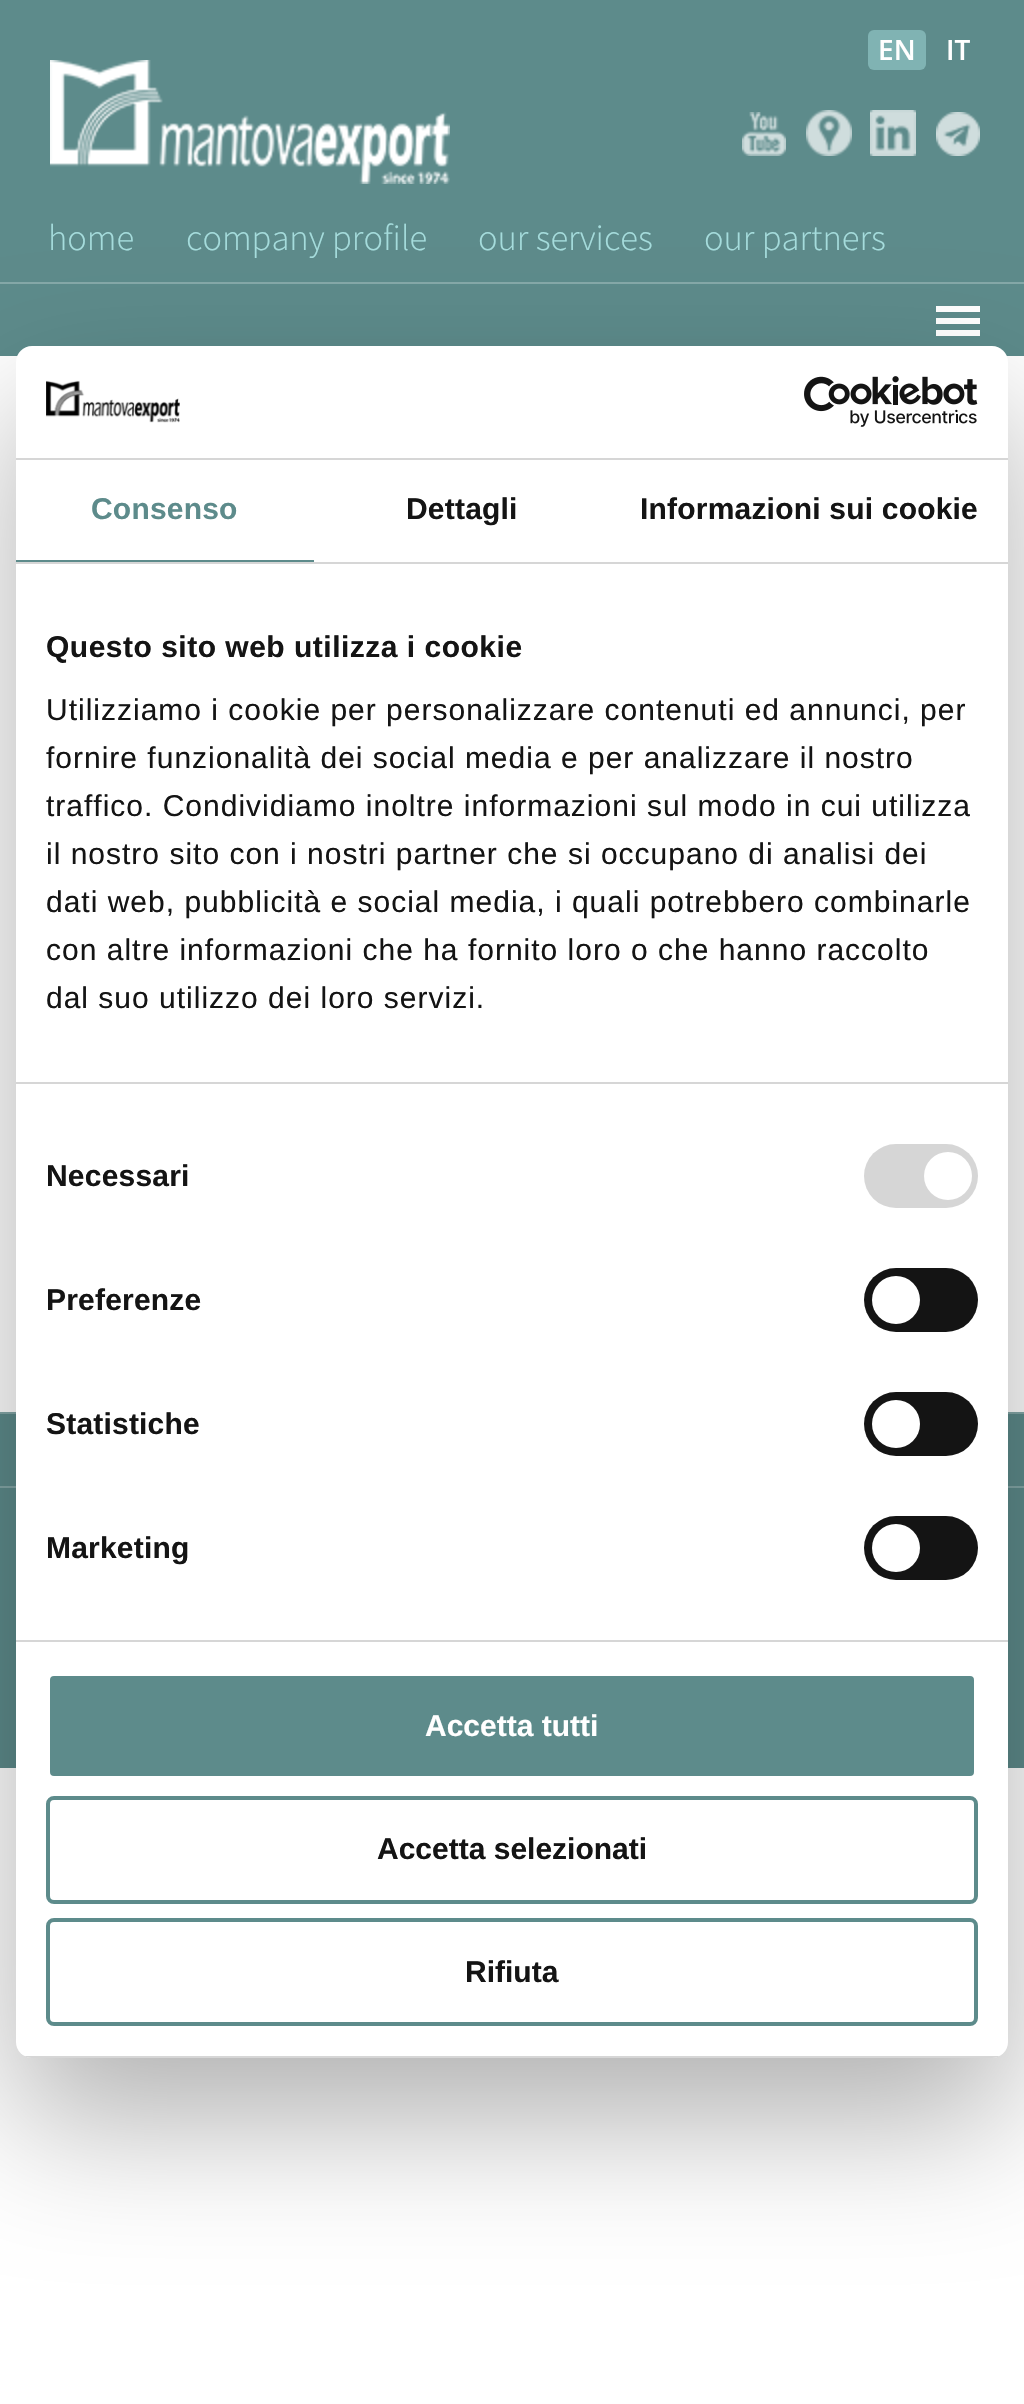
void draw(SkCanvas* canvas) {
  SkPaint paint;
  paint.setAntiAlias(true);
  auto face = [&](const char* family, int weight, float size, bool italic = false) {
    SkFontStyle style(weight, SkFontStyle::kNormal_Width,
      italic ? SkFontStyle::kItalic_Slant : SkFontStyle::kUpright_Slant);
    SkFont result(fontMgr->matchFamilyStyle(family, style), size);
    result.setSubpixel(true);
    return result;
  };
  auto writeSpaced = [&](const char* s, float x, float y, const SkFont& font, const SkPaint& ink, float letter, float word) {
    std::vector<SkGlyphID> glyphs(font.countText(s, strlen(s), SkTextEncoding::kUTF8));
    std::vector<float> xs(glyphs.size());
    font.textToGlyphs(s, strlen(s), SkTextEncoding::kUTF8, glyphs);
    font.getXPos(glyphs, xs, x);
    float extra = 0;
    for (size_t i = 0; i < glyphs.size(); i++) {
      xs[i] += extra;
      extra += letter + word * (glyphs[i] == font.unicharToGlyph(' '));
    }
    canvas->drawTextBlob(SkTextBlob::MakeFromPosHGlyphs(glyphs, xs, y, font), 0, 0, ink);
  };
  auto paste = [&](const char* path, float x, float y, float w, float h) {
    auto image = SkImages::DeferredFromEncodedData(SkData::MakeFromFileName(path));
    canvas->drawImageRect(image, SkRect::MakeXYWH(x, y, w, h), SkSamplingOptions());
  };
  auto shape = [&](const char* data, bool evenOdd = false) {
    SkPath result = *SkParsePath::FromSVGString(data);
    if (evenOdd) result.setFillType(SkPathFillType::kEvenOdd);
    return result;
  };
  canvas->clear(0xffffffff);
  paint.setColor(0xff5d8b8b);
  canvas->drawRect(SkRect::MakeXYWH(0, 0, 1024, 282), paint);
  paint.setColor(0xff80b3b3);
  canvas->drawRoundRect(SkRect::MakeXYWH(868, 30, 58, 40), 6, 6, paint);
  paste("img/1.png", 50, 60, 400, 124);
  paste("img/2.png", 742, 112, 44, 44);
  paste("img/3.png", 806, 110, 46, 46);
  paste("img/4.png", 870, 110, 46, 46);
  paste("img/5.png", 936, 112, 44, 44);
  {
    const struct { float x, y, w, h; SkColor color; } items[] = {
      {0, 284, 1024, 72, 0xff5d8b8b},
      {0, 282, 1024, 2, 0xff85a8a8},
      {936, 306, 44, 6, 0xffffffff},
      {936, 318, 44, 6, 0xffffffff},
      {936, 330, 44, 6, 0xffffffff},
      {0, 1414, 1024, 72, 0xff5d8b8b},
      {0, 1412, 1024, 2, 0xff85a8a8},
      {0, 1488, 1024, 280, 0xff5d8b8b},
      {0, 1486, 1024, 2, 0xff85a8a8},
    };
    for (auto [x, y, w, h, color] : items) {
      paint.setColor(color);
      canvas->drawRect(SkRect::MakeXYWH(x, y, w, h), paint);
    }
  }
  paint.setColor(0x4d000000);
  paint.setMaskFilter(SkMaskFilter::MakeBlur(kNormal_SkBlurStyle, 68));
  canvas->drawRoundRect(SkRect::MakeXYWH(16, 410, 992, 1712), 16, 16, paint);
  paint.setMaskFilter(nullptr);
  paint.setColor(0xffffffff);
  canvas->drawRoundRect(SkRect::MakeXYWH(16, 346, 992, 1712), 16, 16, paint);
  paint.setColor(0xffd6d6d6);
  canvas->drawRect(SkRect::MakeXYWH(16, 458, 992, 2), paint);
  paste("img/6.png", 46, 380, 134, 43);
  paste("img/7.png", 804, 376, 174, 51);
  {
    const struct { float x, y, w, h; SkColor color; } items[] = {
      {16, 562, 992, 2, 0xffd6d6d6},
      {16, 560, 298, 2, 0xff5d8b8b},
      {16, 1082, 992, 2, 0xffd6d6d6},
      {16, 1640, 992, 2, 0xffd6d6d6},
    };
    for (auto [x, y, w, h, color] : items) {
      paint.setColor(color);
      canvas->drawRect(SkRect::MakeXYWH(x, y, w, h), paint);
    }
  }
  canvas->drawRoundRect(SkRect::MakeXYWH(864, 1144, 114, 64), 32, 32, paint);
  paint.setColor(0xffffffff);
  canvas->drawCircle(948, 1176, 24, paint);
  paint.setColor(0xff141414);
  canvas->drawRoundRect(SkRect::MakeXYWH(864, 1268, 114, 64), 32, 32, paint);
  paint.setColor(0xffffffff);
  canvas->drawCircle(896, 1300, 24, paint);
  paint.setColor(0xff141414);
  canvas->drawRoundRect(SkRect::MakeXYWH(864, 1392, 114, 64), 32, 32, paint);
  paint.setColor(0xffffffff);
  canvas->drawCircle(896, 1424, 24, paint);
  paint.setColor(0xff141414);
  canvas->drawRoundRect(SkRect::MakeXYWH(864, 1516, 114, 64), 32, 32, paint);
  paint.setColor(0xffffffff);
  canvas->drawCircle(896, 1548, 24, paint);
  canvas->save();
  canvas->clipPath(shape("M32 346H992C1001 346 1008 353 1008 362V2042C1008 2051 1001 2058 992 2058H32C23 2058 16 2051 16 2042V362C16 353 23 346 32 346Z"), true);
  paint.setColor(0xffd6d6d6);
  canvas->drawRect(SkRect::MakeXYWH(16, 2056, 992, 2), paint);
  canvas->restore();
  paint.setColor(0xff5d8b8b);
  canvas->drawRoundRect(SkRect::MakeXYWH(48, 1674, 928, 104), 6, 6, paint);
  paint.setStroke(true);
  paint.setStrokeWidth(4);
  paint.setColor(0xffffffff);
  canvas->drawRoundRect(SkRect::MakeXYWH(48, 1674, 928, 104), 6, 6, paint);
  paint.setColor(0xff5d8b8b);
  canvas->drawRoundRect(SkRect::MakeXYWH(48, 1798, 928, 104), 6, 6, paint);
  canvas->drawRoundRect(SkRect::MakeXYWH(48, 1920, 928, 104), 6, 6, paint);
  auto f0 = face("Open Sans", 600, 28);
  paint.setStroke(false);
  paint.setColor(0xffffffff);
  canvas->drawString("EN", 878, 60, f0, paint);
  canvas->drawString("IT", 946, 60, f0, paint);
  auto f1 = face("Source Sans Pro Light", 300, 36.5f);
  paint.setColor(0xffa5dcdc);
  {
    const struct { const char* s; float x, y; } items[] = {
      {"home", 48, 250},
      {"company profile", 186, 250},
      {"our services", 478, 250},
      {"our partners", 704, 250},
    };
    for (auto [s, x, y] : items) {
      canvas->drawString(s, x, y, f1, paint);
    }
  }
  auto f2 = face("Liberation Sans", 700, 30);
  paint.setColor(0xff5d8b8b);
  writeSpaced("Consenso", 91, 519, f2, paint, 0.2f, 0);
  paint.setColor(0xff141414);
  writeSpaced("Dettagli", 406, 519, f2, paint, 0.2f, 0);
  writeSpaced("Informazioni sui cookie", 640, 519, f2, paint, 0.2f, 0);
  writeSpaced("Questo sito web utilizza i cookie", 46, 657, f2, paint, 0.5f, 0);
  auto f3 = face("Liberation Sans", 400, 30);
  {
    const struct { const char* s; float x, y; } items[] = {
      {"Utilizziamo i cookie per personalizzare contenuti ed annunci, per", 46, 720},
      {"fornire funzionalità dei social media e per analizzare il nostro", 46, 768},
      {"traffico. Condividiamo inoltre informazioni sul modo in cui utilizza", 46, 816},
      {"il nostro sito con i nostri partner che si occupano di analisi dei", 46, 864},
      {"dati web, pubblicità e social media, i quali potrebbero combinarle", 46, 912},
      {"con altre informazioni che ha fornito loro o che hanno raccolto", 46, 960},
      {"dal suo utilizzo dei loro servizi.", 46, 1008},
    };
    for (auto [s, x, y] : items) {
      writeSpaced(s, x, y, f3, paint, 1, 0);
    }
  }
  {
    const struct { const char* s; float x, y; } items[] = {
      {"Necessari", 46, 1186},
      {"Preferenze", 46, 1310},
      {"Statistiche", 46, 1434},
      {"Marketing", 46, 1558},
    };
    for (auto [s, x, y] : items) {
      writeSpaced(s, x, y, f2, paint, 0.2f, 0);
    }
  }
  paint.setColor(0xffffffff);
  canvas->drawString("Accetta tutti", 425, 1736, f2, paint);
  paint.setColor(0xff141414);
  canvas->drawString("Accetta selezionati", 377, 1859, f2, paint);
  canvas->drawString("Rifiuta", 465, 1982, f2, paint);
}
